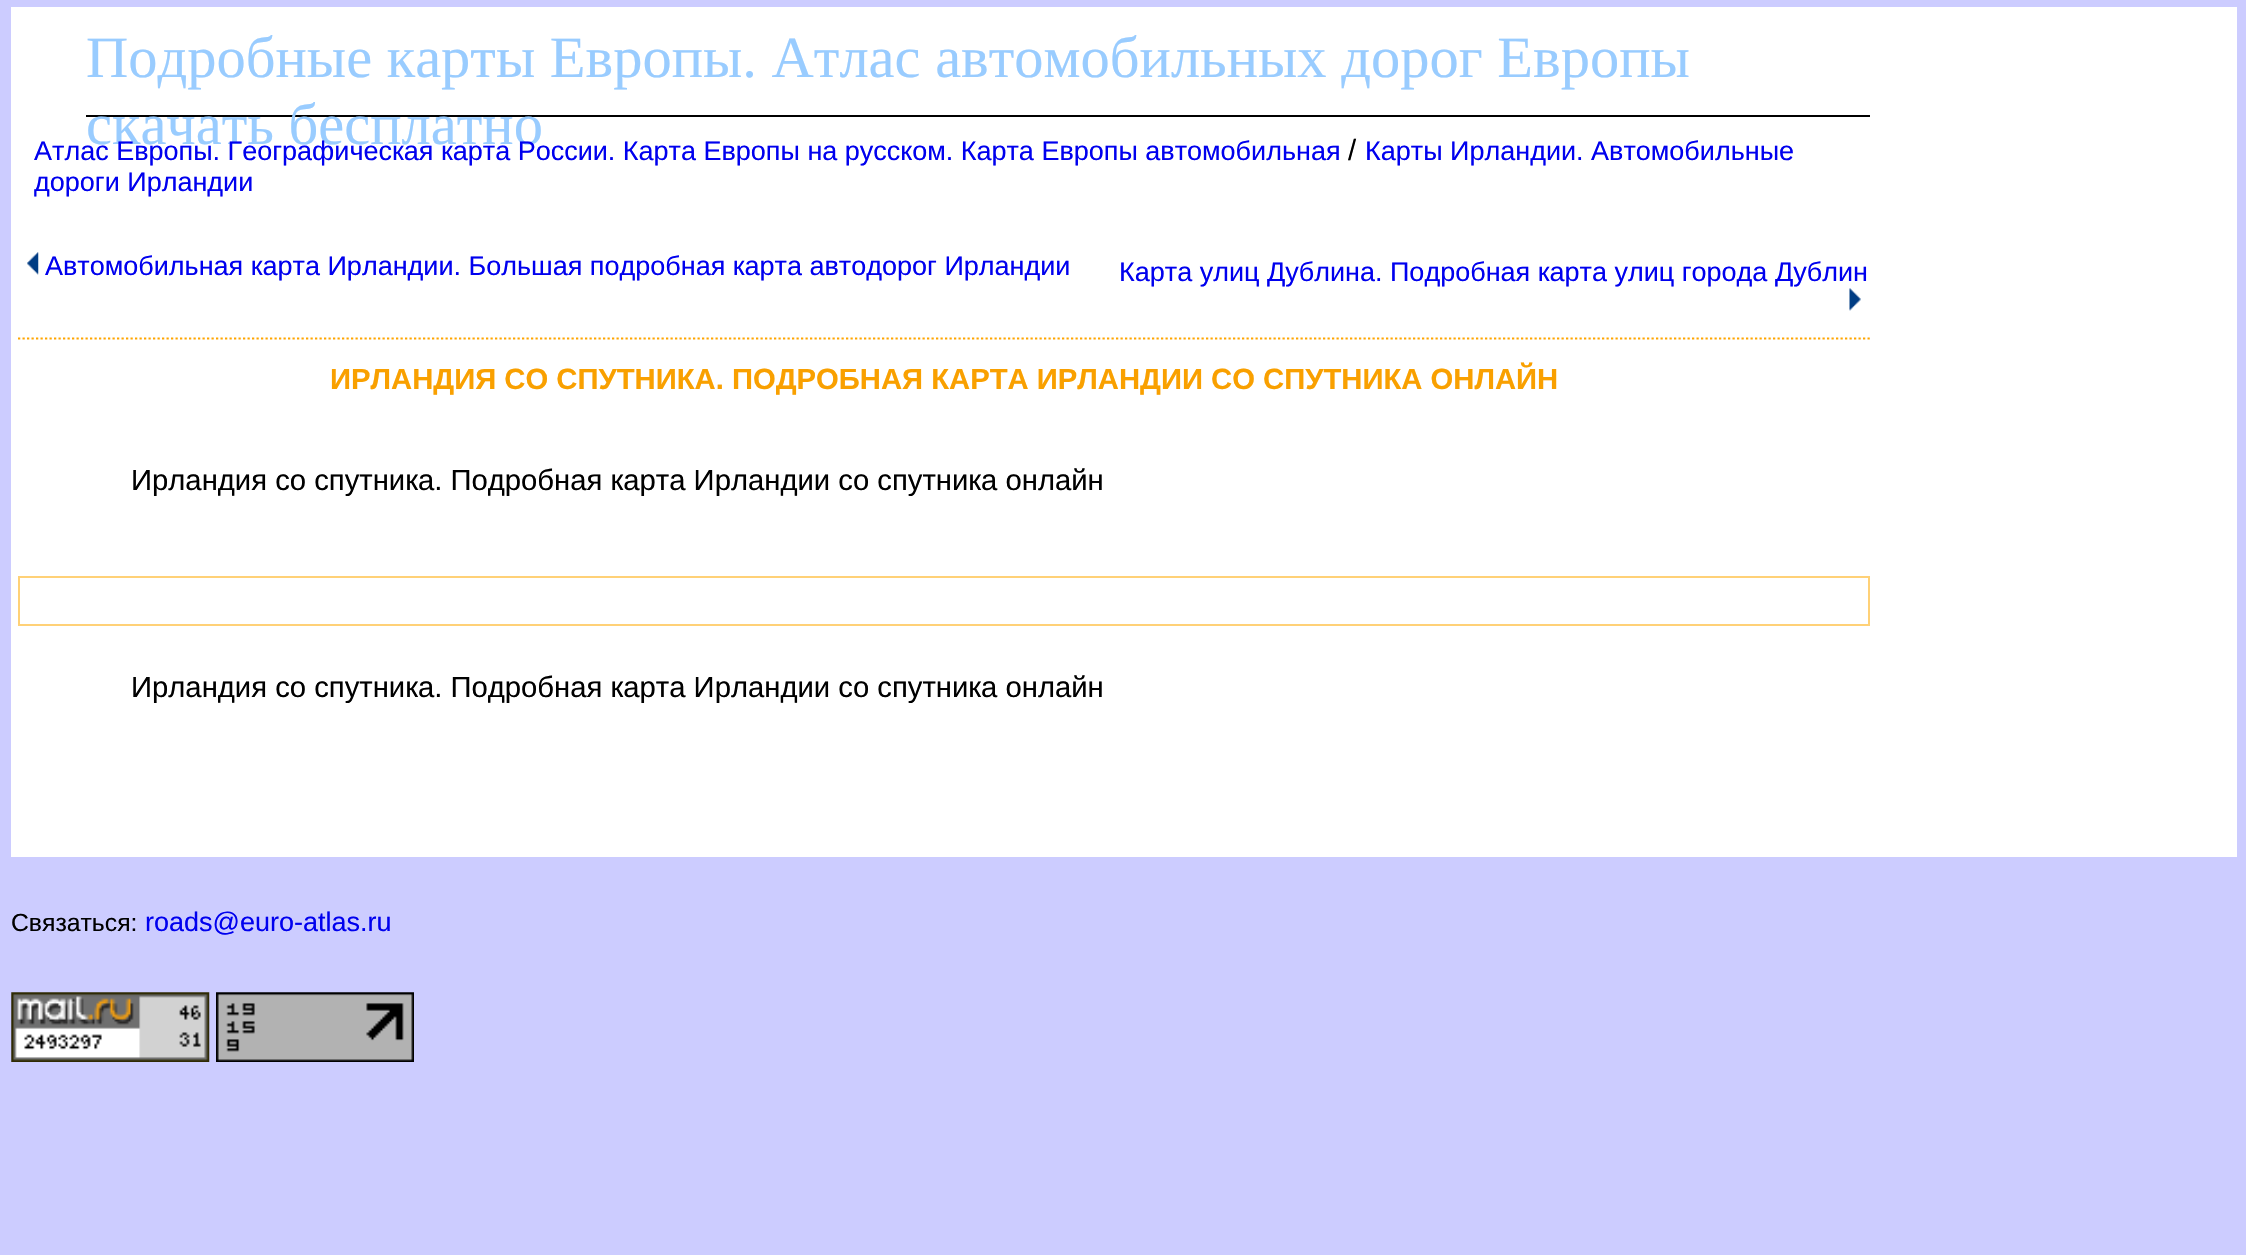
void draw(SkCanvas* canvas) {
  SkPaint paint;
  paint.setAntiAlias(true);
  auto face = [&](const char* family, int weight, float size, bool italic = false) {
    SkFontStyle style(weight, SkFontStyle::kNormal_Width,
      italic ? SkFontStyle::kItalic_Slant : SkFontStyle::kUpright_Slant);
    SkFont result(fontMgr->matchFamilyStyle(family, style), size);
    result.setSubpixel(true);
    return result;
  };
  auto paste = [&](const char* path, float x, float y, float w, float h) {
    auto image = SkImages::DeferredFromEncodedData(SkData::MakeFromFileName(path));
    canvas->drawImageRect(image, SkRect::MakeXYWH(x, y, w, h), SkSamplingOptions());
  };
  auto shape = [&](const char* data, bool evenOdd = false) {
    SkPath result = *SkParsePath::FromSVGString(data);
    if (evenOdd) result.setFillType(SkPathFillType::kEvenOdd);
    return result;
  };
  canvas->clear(0xffccccff);
  paint.setColor(0xffffffff);
  canvas->drawRect(SkRect::MakeXYWH(11, 7, 2226, 850), paint);
  paint.setColor(0xff000000);
  canvas->drawRect(SkRect::MakeXYWH(86, 115, 1784, 2), paint);
  paste("img/1.png", 27, 252, 12, 23);
  paste("img/2.png", 1849, 288, 12, 23);
  paint.setStroke(true);
  paint.setStrokeWidth(2.2f);
  paint.setColor(0xffffa500);
  paint.setPathEffect(SkDashPathEffect::Make({{2.25f, 2.25f}}, 0));
  canvas->drawPath(shape("M18 338.5H1870"), paint);
  paint.setPathEffect(nullptr);
  paint.setStrokeWidth(2);
  paint.setColor(0xffffd177);
  canvas->drawRect(SkRect::MakeXYWH(19, 577, 1850, 48), paint);
  paste("img/3.png", 11, 992, 199, 70);
  paste("img/4.png", 216, 992, 198, 70);
  auto f0 = face("Liberation Serif", 400, 58.5f);
  paint.setStroke(false);
  paint.setColor(0xff99ccff);
  canvas->drawString("Подробные карты Европы. Атлас автомобильных дорог Европы", 86, 77, f0, paint);
  canvas->drawString("скачать бесплатно", 86, 144, f0, paint);
  auto f1 = face("Liberation Sans", 400, 27);
  paint.setColor(0xff0000ee);
  canvas->drawString("Атлас Европы. Географическая карта России. Карта Европы на русском. Карта Европы автомобильная", 34, 160, f1, paint);
  auto f2 = face("Liberation Sans", 400, 29.25f);
  paint.setColor(0xff000000);
  canvas->drawString("/", 1348, 160, f2, paint);
  paint.setColor(0xff0000ee);
  {
    const struct { const char* s; float x, y; } items[] = {
      {"Карты Ирландии. Автомобильные", 1365, 160},
      {"дороги Ирландии", 34, 191},
      {"Автомобильная карта Ирландии. Большая подробная карта автодорог Ирландии", 45, 275},
      {"Карта улиц Дублина. Подробная карта улиц города Дублин", 1119, 281},
    };
    for (auto [s, x, y] : items) {
      canvas->drawString(s, x, y, f1, paint);
    }
  }
  auto f3 = face("Liberation Sans", 700, 29.25f);
  paint.setColor(0xfff9a000);
  canvas->drawString("ИРЛАНДИЯ СО СПУТНИКА. ПОДРОБНАЯ КАРТА ИРЛАНДИИ СО СПУТНИКА ОНЛАЙН", 330, 389, f3, paint);
  paint.setColor(0xff000000);
  canvas->drawString("Ирландия со спутника. Подробная карта Ирландии со спутника онлайн", 131, 490, f2, paint);
  canvas->drawString("Ирландия со спутника. Подробная карта Ирландии со спутника онлайн", 131, 697, f2, paint);
  auto f4 = face("Liberation Sans", 400, 24.75f);
  canvas->drawString("Связаться:", 11, 931, f4, paint);
  paint.setColor(0xff0000ee);
  canvas->drawString("roads@euro-atlas.ru", 145, 931, f1, paint);
}
